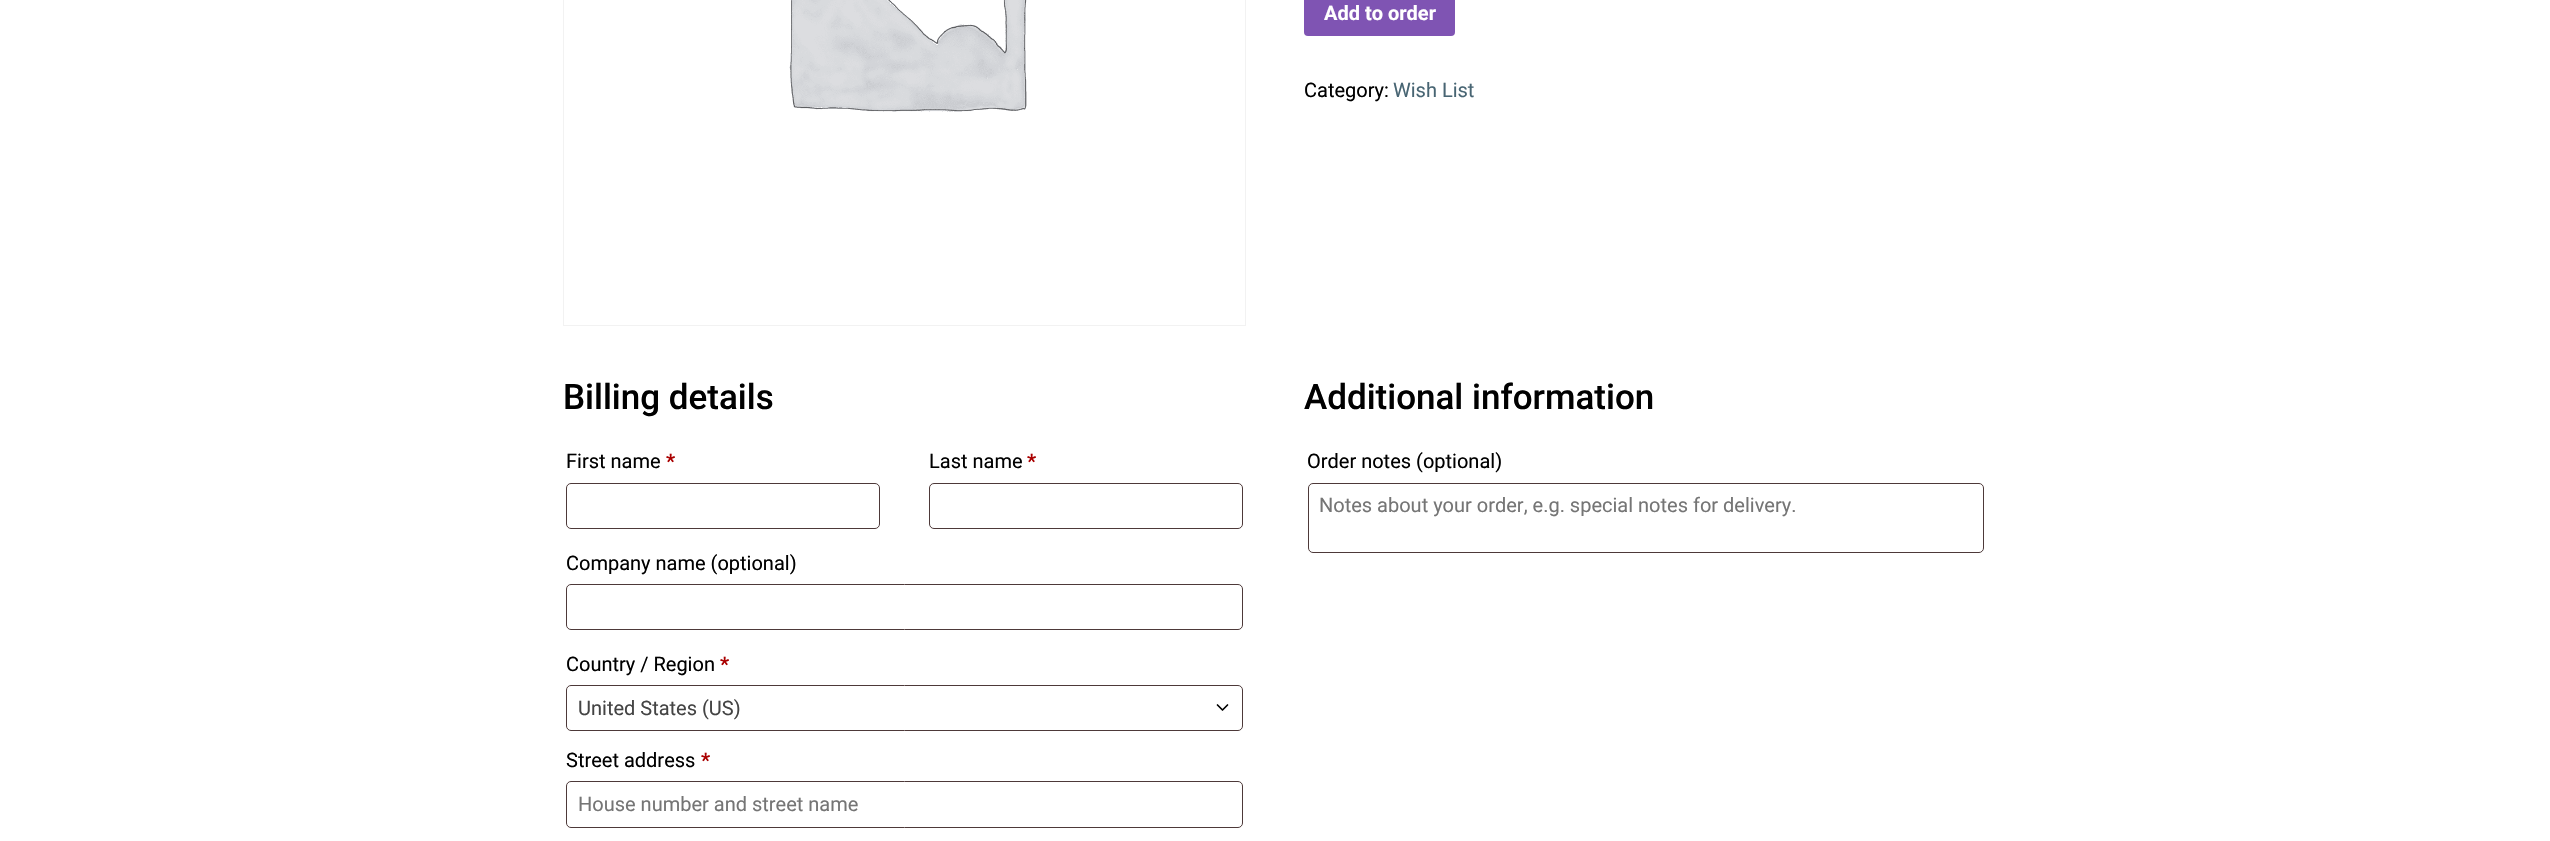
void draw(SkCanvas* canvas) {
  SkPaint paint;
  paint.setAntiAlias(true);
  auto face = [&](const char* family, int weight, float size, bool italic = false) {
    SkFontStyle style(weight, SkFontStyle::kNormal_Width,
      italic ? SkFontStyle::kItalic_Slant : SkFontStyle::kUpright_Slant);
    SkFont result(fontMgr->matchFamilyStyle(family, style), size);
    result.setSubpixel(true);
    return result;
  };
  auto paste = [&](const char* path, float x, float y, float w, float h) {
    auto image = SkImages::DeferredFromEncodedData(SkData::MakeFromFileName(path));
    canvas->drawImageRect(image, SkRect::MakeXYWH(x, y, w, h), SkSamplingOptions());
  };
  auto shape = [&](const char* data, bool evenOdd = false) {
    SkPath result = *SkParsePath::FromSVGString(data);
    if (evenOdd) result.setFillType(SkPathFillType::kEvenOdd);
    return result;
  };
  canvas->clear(0xffffffff);
  paint.setStroke(true);
  paint.setStrokeWidth(1);
  paint.setColor(0xfff2f2f2);
  canvas->drawRect(SkRect::MakeXYWH(563.5f, -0.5f, 682, 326), paint);
  paste("img/1.png", 789, 0, 238, 112);
  paint.setStroke(false);
  paint.setColor(0xff7f54b3);
  canvas->drawRoundRect(SkRect::MakeXYWH(1304, -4, 151, 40), 4, 4, paint);
  paint.setStroke(true);
  paint.setColor(0xff4d3939);
  canvas->drawRoundRect(SkRect::MakeXYWH(566.5f, 483.5f, 313, 45), 4.5f, 4.5f, paint);
  canvas->drawRoundRect(SkRect::MakeXYWH(929.5f, 483.5f, 313, 45), 4.5f, 4.5f, paint);
  canvas->drawRoundRect(SkRect::MakeXYWH(566.5f, 584.5f, 676, 45), 4.5f, 4.5f, paint);
  canvas->drawRoundRect(SkRect::MakeXYWH(566.5f, 685.5f, 676, 45), 4.5f, 4.5f, paint);
  paint.setStrokeWidth(1.7f);
  paint.setStrokeCap(SkPaint::kRound_Cap);
  paint.setStrokeJoin(SkPaint::kRound_Join);
  paint.setColor(0xff000000);
  canvas->drawPath(shape("M1217.5 705L1222.5 710L1227.5 705"), paint);
  paint.setStrokeWidth(1);
  paint.setStrokeCap(SkPaint::kButt_Cap);
  paint.setStrokeJoin(SkPaint::kMiter_Join);
  paint.setColor(0xff4d3939);
  canvas->drawRoundRect(SkRect::MakeXYWH(566.5f, 781.5f, 676, 46), 4.5f, 4.5f, paint);
  canvas->drawRoundRect(SkRect::MakeXYWH(1308.5f, 483.5f, 675, 69), 4.5f, 4.5f, paint);
  auto f0 = face("Roboto", 700, 20);
  paint.setStroke(false);
  paint.setColor(0xffffffff);
  canvas->drawString("Add to order", 1324, 20, f0, paint);
  auto f1 = face("Roboto", 400, 20);
  paint.setColor(0xff000000);
  canvas->drawString("Category:", 1304, 97, f1, paint);
  paint.setColor(0xff486573);
  canvas->drawString("Wish List", 1393, 97, f1, paint);
  auto f2 = face("Roboto", 500, 35);
  paint.setColor(0xff000000);
  canvas->drawString("Billing details", 563, 409, f2, paint);
  canvas->drawString("First name", 566, 468, f1, paint);
  paint.setColor(0xffaa0000);
  canvas->drawString("*", 666, 468, f0, paint);
  paint.setColor(0xff000000);
  canvas->drawString("Last name", 929, 468, f1, paint);
  paint.setColor(0xffaa0000);
  canvas->drawString("*", 1027, 468, f0, paint);
  paint.setColor(0xff000000);
  canvas->drawString("Company name (optional)", 566, 570, f1, paint);
  canvas->drawString("Country / Region", 566, 671, f1, paint);
  paint.setColor(0xffaa0000);
  canvas->drawString("*", 720, 671, f0, paint);
  paint.setColor(0xff444444);
  canvas->drawString("United States (US)", 578, 715, f1, paint);
  paint.setColor(0xff000000);
  canvas->drawString("Street address", 566, 767, f1, paint);
  paint.setColor(0xffaa0000);
  canvas->drawString("*", 701, 767, f0, paint);
  paint.setColor(0xff757575);
  canvas->drawString("House number and street name", 578, 811, f1, paint);
  paint.setColor(0xff000000);
  canvas->drawString("Additional information", 1304, 409, f2, paint);
  canvas->drawString("Order notes (optional)", 1307, 468, f1, paint);
  paint.setColor(0xff757575);
  canvas->drawString("Notes about your order, e.g. special notes for delivery.", 1319, 512, f1, paint);
}
